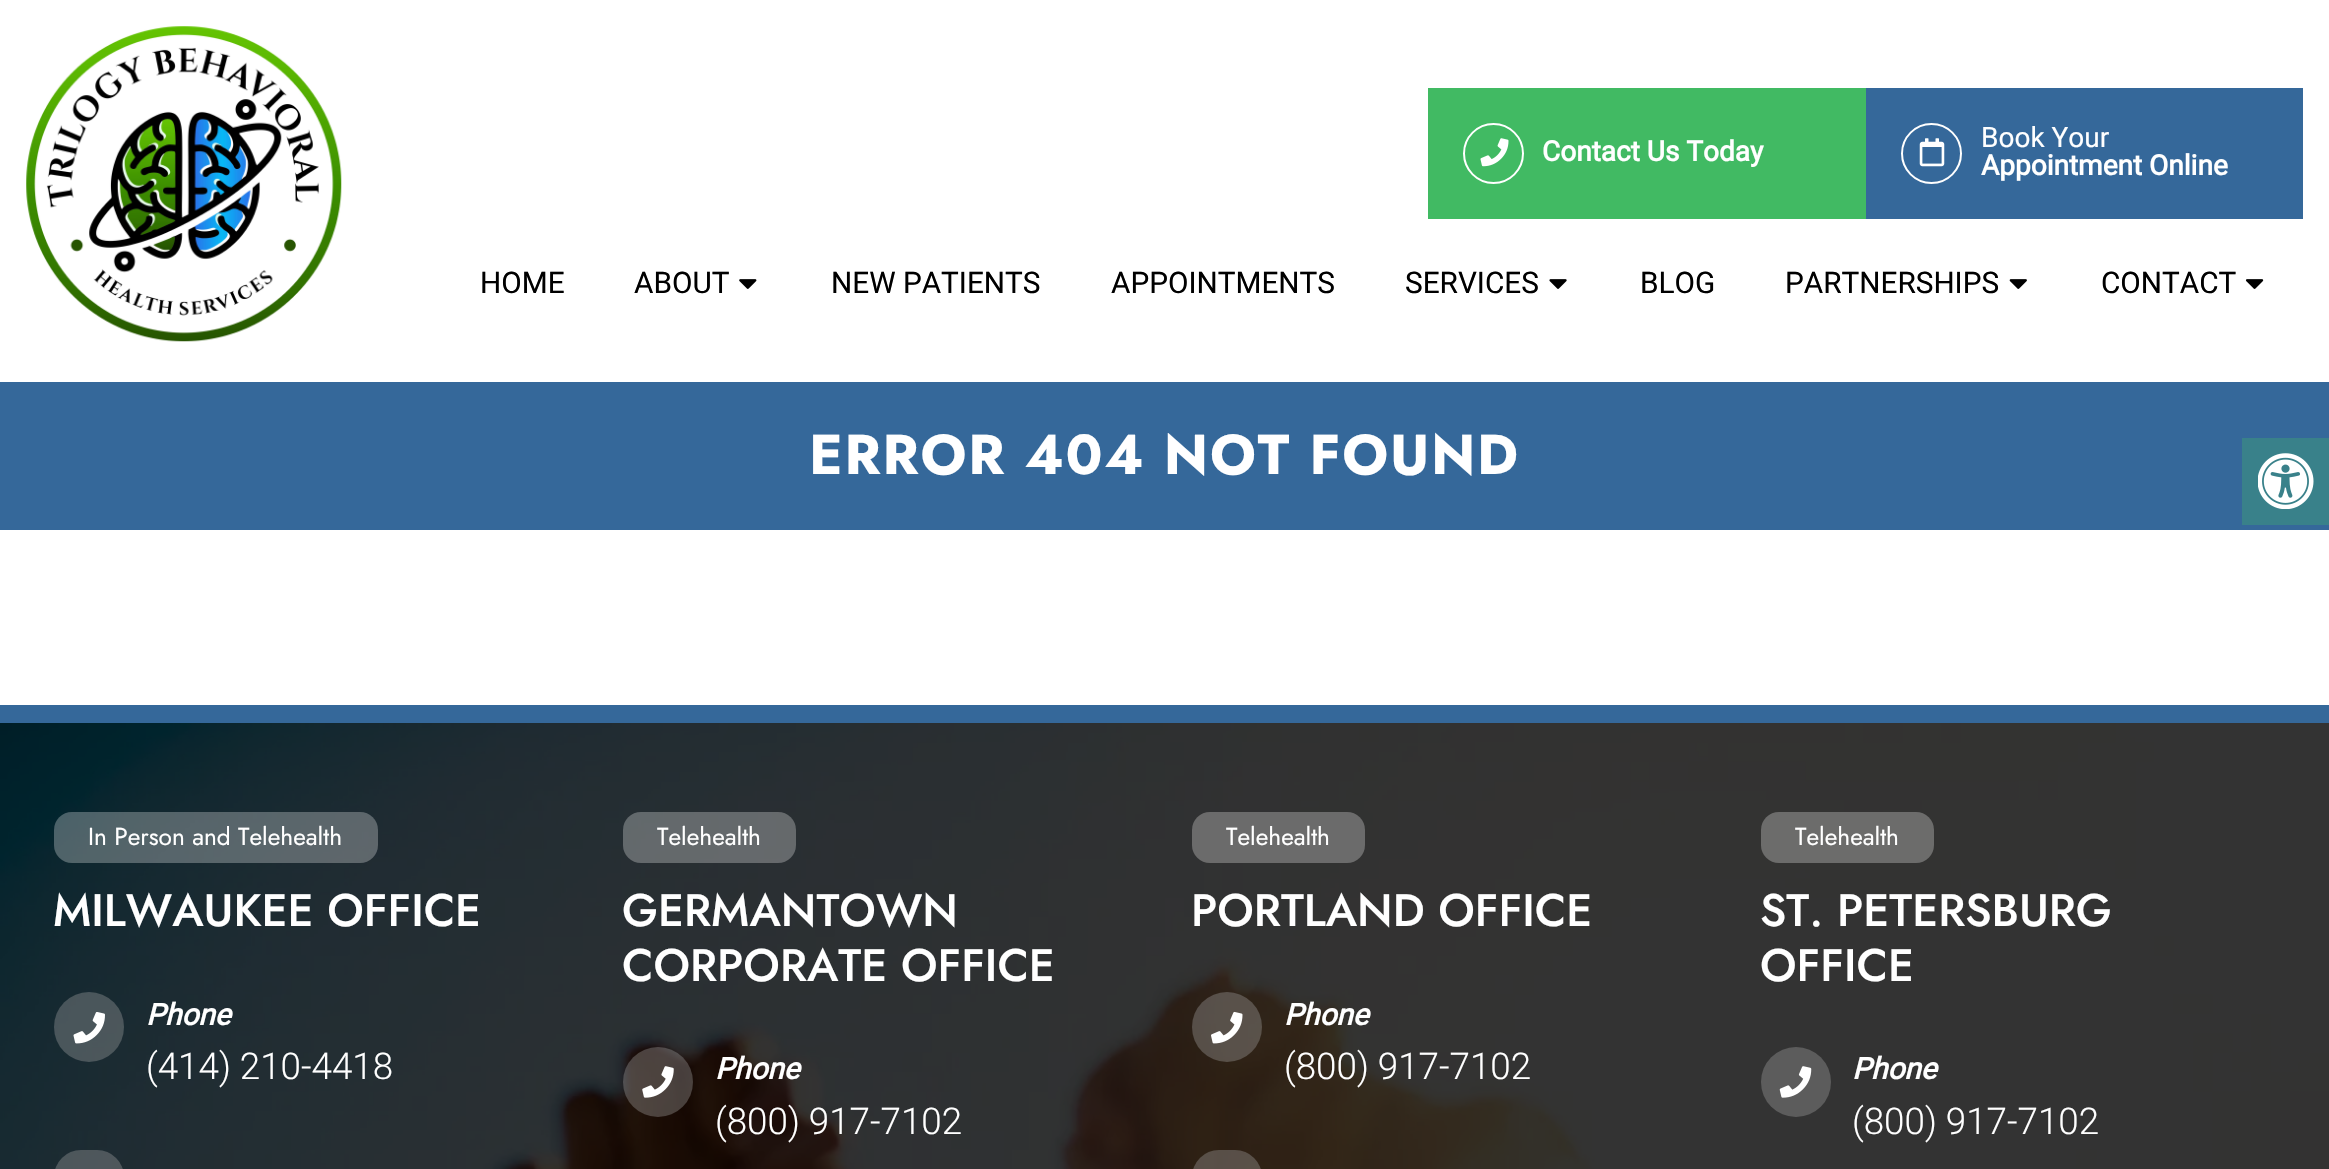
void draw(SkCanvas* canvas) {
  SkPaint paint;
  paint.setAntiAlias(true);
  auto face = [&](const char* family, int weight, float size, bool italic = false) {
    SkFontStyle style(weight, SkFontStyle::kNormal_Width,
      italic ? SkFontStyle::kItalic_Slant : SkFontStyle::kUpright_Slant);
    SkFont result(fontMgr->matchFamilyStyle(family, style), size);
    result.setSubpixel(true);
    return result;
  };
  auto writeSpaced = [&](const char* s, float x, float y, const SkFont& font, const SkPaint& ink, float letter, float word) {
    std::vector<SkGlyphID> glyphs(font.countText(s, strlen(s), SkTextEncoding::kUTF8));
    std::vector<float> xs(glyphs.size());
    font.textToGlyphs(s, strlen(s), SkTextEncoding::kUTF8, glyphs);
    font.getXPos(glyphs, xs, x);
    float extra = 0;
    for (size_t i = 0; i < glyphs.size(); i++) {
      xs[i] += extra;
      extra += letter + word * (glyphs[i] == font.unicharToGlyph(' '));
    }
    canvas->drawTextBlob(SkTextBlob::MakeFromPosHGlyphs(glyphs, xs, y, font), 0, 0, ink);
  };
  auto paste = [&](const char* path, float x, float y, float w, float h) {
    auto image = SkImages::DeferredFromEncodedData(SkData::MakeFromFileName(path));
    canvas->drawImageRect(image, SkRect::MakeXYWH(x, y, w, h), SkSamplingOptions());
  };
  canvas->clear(0xffffffff);
  paste("img/1.png", 26, 26, 316, 316);
  paint.setColor(0xff41ba63);
  canvas->drawRect(SkRect::MakeXYWH(1428, 88, 438, 131), paint);
  paint.setStroke(true);
  paint.setStrokeWidth(2);
  paint.setColor(0xffffffff);
  canvas->drawCircle(1493.5f, 153.5f, 29.5f, paint);
  paste("img/2.png", 1480, 138, 29, 29);
  paint.setStroke(false);
  paint.setColor(0xff35689a);
  canvas->drawRect(SkRect::MakeXYWH(1866, 88, 437, 131), paint);
  paint.setStroke(true);
  paint.setColor(0xffffffff);
  canvas->drawCircle(1931.5f, 153.5f, 29.5f, paint);
  paste("img/3.png", 1919, 138, 26, 29);
  paste("img/4.png", 739, 279, 18, 10);
  paste("img/5.png", 1549, 279, 18, 10);
  paste("img/6.png", 2009, 279, 18, 10);
  paste("img/7.png", 2245, 279, 19, 10);
  paint.setStroke(false);
  {
    const struct { float x, y, w, h; SkColor color; } items[] = {
      {0, 382, 2329, 148, 0xff35689a},
      {0, 705, 2329, 18, 0xff35689a},
      {0, 723, 2329, 446, 0xff000000},
    };
    for (auto [x, y, w, h, color] : items) {
      paint.setColor(color);
      canvas->drawRect(SkRect::MakeXYWH(x, y, w, h), paint);
    }
  }
  paste("img/8.png", 0, 723, 2329, 446);
  paint.setColor(0x47ffffff);
  canvas->drawRoundRect(SkRect::MakeXYWH(54, 812, 324, 51), 18, 18, paint);
  paint.setColor(0x57ababab);
  canvas->drawCircle(89, 1027, 35, paint);
  paste("img/9.png", 73, 1012, 32, 32);
  canvas->drawRoundRect(SkRect::MakeXYWH(54, 1150, 70, 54), 35, 35, paint);
  paint.setColor(0x47ffffff);
  canvas->drawRoundRect(SkRect::MakeXYWH(623, 812, 173, 51), 18, 18, paint);
  paint.setColor(0x57ababab);
  canvas->drawCircle(658, 1082, 35, paint);
  paste("img/10.png", 642, 1066, 32, 32);
  paint.setColor(0xff6b6b6b);
  canvas->drawRoundRect(SkRect::MakeXYWH(1192, 812, 173, 51), 18, 18, paint);
  paint.setColor(0x57ababab);
  canvas->drawCircle(1227, 1027, 35, paint);
  paste("img/11.png", 1211, 1011, 32, 33);
  canvas->drawRoundRect(SkRect::MakeXYWH(1192, 1150, 70, 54), 35, 35, paint);
  paint.setColor(0xff6c6c6b);
  canvas->drawRoundRect(SkRect::MakeXYWH(1761, 812, 173, 51), 18, 18, paint);
  paint.setColor(0xff5c5c5c);
  canvas->drawCircle(1796, 1082, 35, paint);
  paste("img/12.png", 1779, 1066, 33, 32);
  paint.setColor(0xff39818a);
  canvas->drawRect(SkRect::MakeXYWH(2242, 438, 87, 87), paint);
  paste("img/13.png", 2258, 453, 56, 56);
  auto f0 = face("Roboto", 700, 28);
  paint.setColor(0xffffffff);
  canvas->drawString("Contact Us Today", 1542, 161, f0, paint);
  auto f1 = face("Roboto", 400, 28);
  canvas->drawString("Book Your", 1981, 147, f1, paint);
  canvas->drawString("Appointment Online", 1981, 175, f0, paint);
  auto f2 = face("Roboto", 400, 29.75f);
  paint.setColor(0xff000000);
  {
    const struct { const char* s; float x, y; } items[] = {
      {"HOME", 480, 293},
      {"ABOUT", 634, 293},
      {"NEW PATIENTS", 831, 293},
      {"APPOINTMENTS", 1111, 293},
      {"SERVICES", 1405, 293},
      {"BLOG", 1640, 293},
      {"PARTNERSHIPS", 1785, 293},
      {"CONTACT", 2101, 293},
    };
    for (auto [s, x, y] : items) {
      canvas->drawString(s, x, y, f2, paint);
    }
  }
  auto f3 = face("Jost", 700, 56);
  paint.setColor(0xffffffff);
  writeSpaced("ERROR 404 NOT FOUND", 809, 474, f3, paint, 1.75f, 0);
  auto f4 = face("Jost", 400, 24.5f);
  canvas->drawString("In Person and Telehealth", 88, 845, f4, paint);
  auto f5 = face("Jost", 500, 45.5f);
  canvas->drawString("MILWAUKEE OFFICE", 53, 926, f5, paint);
  auto f6 = face("Roboto", 700, 29.75f, true);
  canvas->drawString("Phone", 146, 1025, f6, paint);
  auto f7 = face("Roboto", 300, 36.75f);
  canvas->drawString("(414) 210-4418", 146, 1079, f7, paint);
  canvas->drawString("Telehealth", 657, 845, f4, paint);
  canvas->drawString("GERMANTOWN", 622, 926, f5, paint);
  canvas->drawString("CORPORATE OFFICE", 622, 981, f5, paint);
  canvas->drawString("Phone", 715, 1079, f6, paint);
  canvas->drawString("(800) 917-7102", 715, 1134, f7, paint);
  canvas->drawString("Telehealth", 1226, 845, f4, paint);
  canvas->drawString("PORTLAND OFFICE", 1191, 926, f5, paint);
  canvas->drawString("Phone", 1284, 1025, f6, paint);
  canvas->drawString("(800) 917-7102", 1284, 1079, f7, paint);
  canvas->drawString("Telehealth", 1795, 845, f4, paint);
  canvas->drawString("ST. PETERSBURG", 1760, 926, f5, paint);
  canvas->drawString("OFFICE", 1760, 981, f5, paint);
  canvas->drawString("Phone", 1852, 1079, f6, paint);
  canvas->drawString("(800) 917-7102", 1852, 1134, f7, paint);
}
